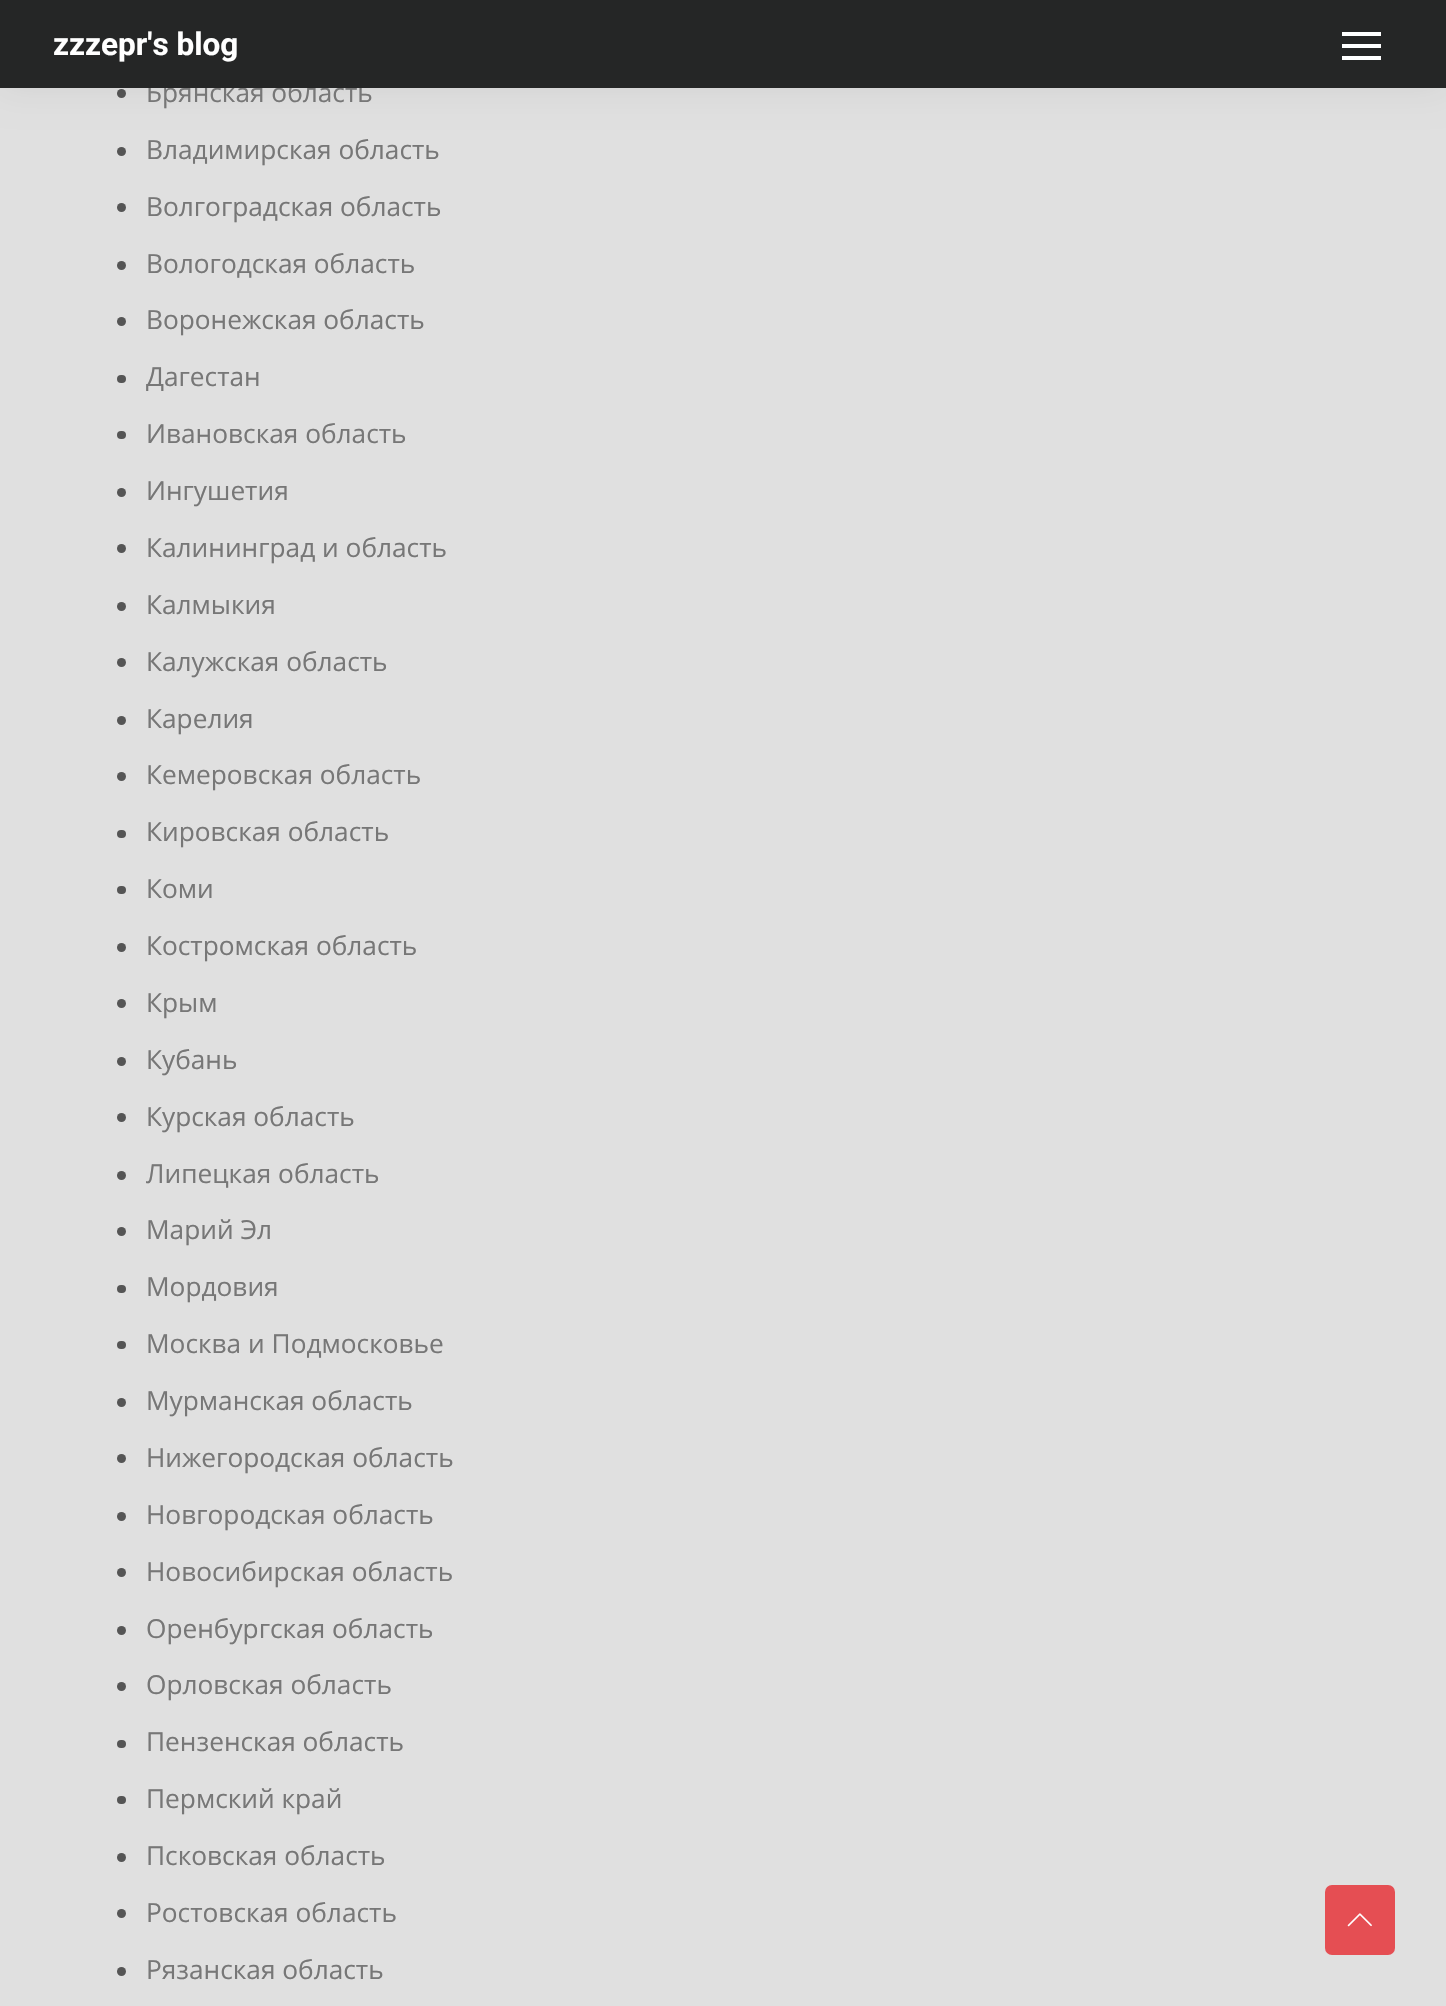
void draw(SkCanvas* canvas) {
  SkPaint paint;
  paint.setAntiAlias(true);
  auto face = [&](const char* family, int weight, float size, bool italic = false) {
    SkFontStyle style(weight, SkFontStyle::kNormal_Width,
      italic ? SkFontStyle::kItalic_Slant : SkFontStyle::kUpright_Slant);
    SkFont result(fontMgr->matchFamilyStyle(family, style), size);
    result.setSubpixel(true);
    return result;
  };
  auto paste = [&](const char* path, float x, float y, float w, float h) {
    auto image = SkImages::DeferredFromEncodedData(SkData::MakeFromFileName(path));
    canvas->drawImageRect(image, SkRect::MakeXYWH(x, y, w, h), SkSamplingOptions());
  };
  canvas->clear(0xffe0e0e0);
  paint.setColor(0xff555555);
  canvas->drawCircle(121.5f, 93.5f, 4.5f, paint);
  paint.setColor(0x12000000);
  paint.setMaskFilter(SkMaskFilter::MakeBlur(kNormal_SkBlurStyle, 17.5f));
  canvas->drawRect(SkRect::MakeXYWH(0, 0, 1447, 88), paint);
  paint.setMaskFilter(nullptr);
  paint.setColor(0xff555555);
  canvas->drawCircle(121.5f, 151.5f, 4.5f, paint);
  canvas->drawCircle(121.5f, 207.5f, 4.5f, paint);
  canvas->drawCircle(121.5f, 265.5f, 4.5f, paint);
  canvas->drawCircle(121.5f, 321.5f, 4.5f, paint);
  canvas->drawRoundRect(SkRect::MakeXYWH(117, 375, 9, 8), 4, 4, paint);
  canvas->drawRoundRect(SkRect::MakeXYWH(117, 431, 9, 8), 4, 4, paint);
  canvas->drawCircle(121.5f, 492.5f, 4.5f, paint);
  canvas->drawCircle(121.5f, 548.5f, 4.5f, paint);
  canvas->drawCircle(121.5f, 606.5f, 4.5f, paint);
  canvas->drawCircle(121.5f, 662.5f, 4.5f, paint);
  canvas->drawCircle(121.5f, 720.5f, 4.5f, paint);
  canvas->drawCircle(121.5f, 776.5f, 4.5f, paint);
  canvas->drawRoundRect(SkRect::MakeXYWH(117, 830, 9, 8), 4, 4, paint);
  canvas->drawRoundRect(SkRect::MakeXYWH(117, 886, 9, 8), 4, 4, paint);
  canvas->drawCircle(121.5f, 947.5f, 4.5f, paint);
  canvas->drawCircle(121.5f, 1003.5f, 4.5f, paint);
  canvas->drawCircle(121.5f, 1061.5f, 4.5f, paint);
  canvas->drawCircle(121.5f, 1117.5f, 4.5f, paint);
  canvas->drawCircle(121.5f, 1175.5f, 4.5f, paint);
  canvas->drawCircle(121.5f, 1231.5f, 4.5f, paint);
  canvas->drawRoundRect(SkRect::MakeXYWH(117, 1285, 9, 8), 4, 4, paint);
  canvas->drawRoundRect(SkRect::MakeXYWH(117, 1341, 9, 8), 4, 4, paint);
  canvas->drawCircle(121.5f, 1402.5f, 4.5f, paint);
  canvas->drawCircle(121.5f, 1458.5f, 4.5f, paint);
  canvas->drawCircle(121.5f, 1516.5f, 4.5f, paint);
  canvas->drawCircle(121.5f, 1572.5f, 4.5f, paint);
  canvas->drawCircle(121.5f, 1630.5f, 4.5f, paint);
  canvas->drawCircle(121.5f, 1686.5f, 4.5f, paint);
  canvas->drawRoundRect(SkRect::MakeXYWH(117, 1740, 9, 8), 4, 4, paint);
  canvas->drawRoundRect(SkRect::MakeXYWH(117, 1796, 9, 8), 4, 4, paint);
  canvas->drawCircle(121.5f, 1857.5f, 4.5f, paint);
  canvas->drawCircle(121.5f, 1913.5f, 4.5f, paint);
  canvas->drawCircle(121.5f, 1971.5f, 4.5f, paint);
  paint.setColor(0xffe54e53);
  canvas->drawRoundRect(SkRect::MakeXYWH(1325, 1885, 70, 70), 7, 7, paint);
  paste("img/1.png", 1347, 1913, 25, 14);
  auto f0 = face("Open Sans", 400, 26.25f);
  paint.setColor(0xff777777);
  canvas->drawString("Брянская область", 146, 102, f0, paint);
  {
    const struct { float x, y, w, h; SkColor color; } items[] = {
      {0, 0, 1446, 88, 0xff252626},
      {1342, 56, 39, 4, 0xffffffff},
      {1342, 32, 39, 4, 0xffffffff},
      {1342, 44, 39, 4, 0xffffffff},
    };
    for (auto [x, y, w, h, color] : items) {
      paint.setColor(color);
      canvas->drawRect(SkRect::MakeXYWH(x, y, w, h), paint);
    }
  }
  auto f1 = face("Roboto", 700, 31.5f);
  canvas->drawString("zzzepr's blog", 53, 55, f1, paint);
  paint.setColor(0xff777777);
  {
    const struct { const char* s; float x, y; } items[] = {
      {"Владимирская область", 146, 159},
      {"Волгоградская область", 146, 216},
      {"Вологодская область", 146, 273},
      {"Воронежская область", 146, 329},
      {"Дагестан", 146, 386},
      {"Ивановская область", 146, 443},
      {"Ингушетия", 146, 500},
      {"Калининград и область", 146, 557},
      {"Калмыкия", 146, 614},
      {"Калужская область", 146, 671},
      {"Карелия", 146, 728},
      {"Кемеровская область", 146, 784},
      {"Кировская область", 146, 841},
      {"Коми", 146, 898},
      {"Костромская область", 146, 955},
      {"Крым", 146, 1012},
      {"Кубань", 146, 1069},
      {"Курская область", 146, 1126},
      {"Липецкая область", 146, 1183},
      {"Марий Эл", 146, 1239},
      {"Мордовия", 146, 1296},
      {"Москва и Подмосковье", 146, 1353},
      {"Мурманская область", 146, 1410},
      {"Нижегородская область", 146, 1467},
      {"Новгородская область", 146, 1524},
      {"Новосибирская область", 146, 1581},
      {"Оренбургская область", 146, 1638},
      {"Орловская область", 146, 1694},
      {"Пензенская область", 146, 1751},
      {"Пермский край", 146, 1808},
      {"Псковская область", 146, 1865},
      {"Ростовская область", 146, 1922},
      {"Рязанская область", 146, 1979},
    };
    for (auto [s, x, y] : items) {
      canvas->drawString(s, x, y, f0, paint);
    }
  }
}
